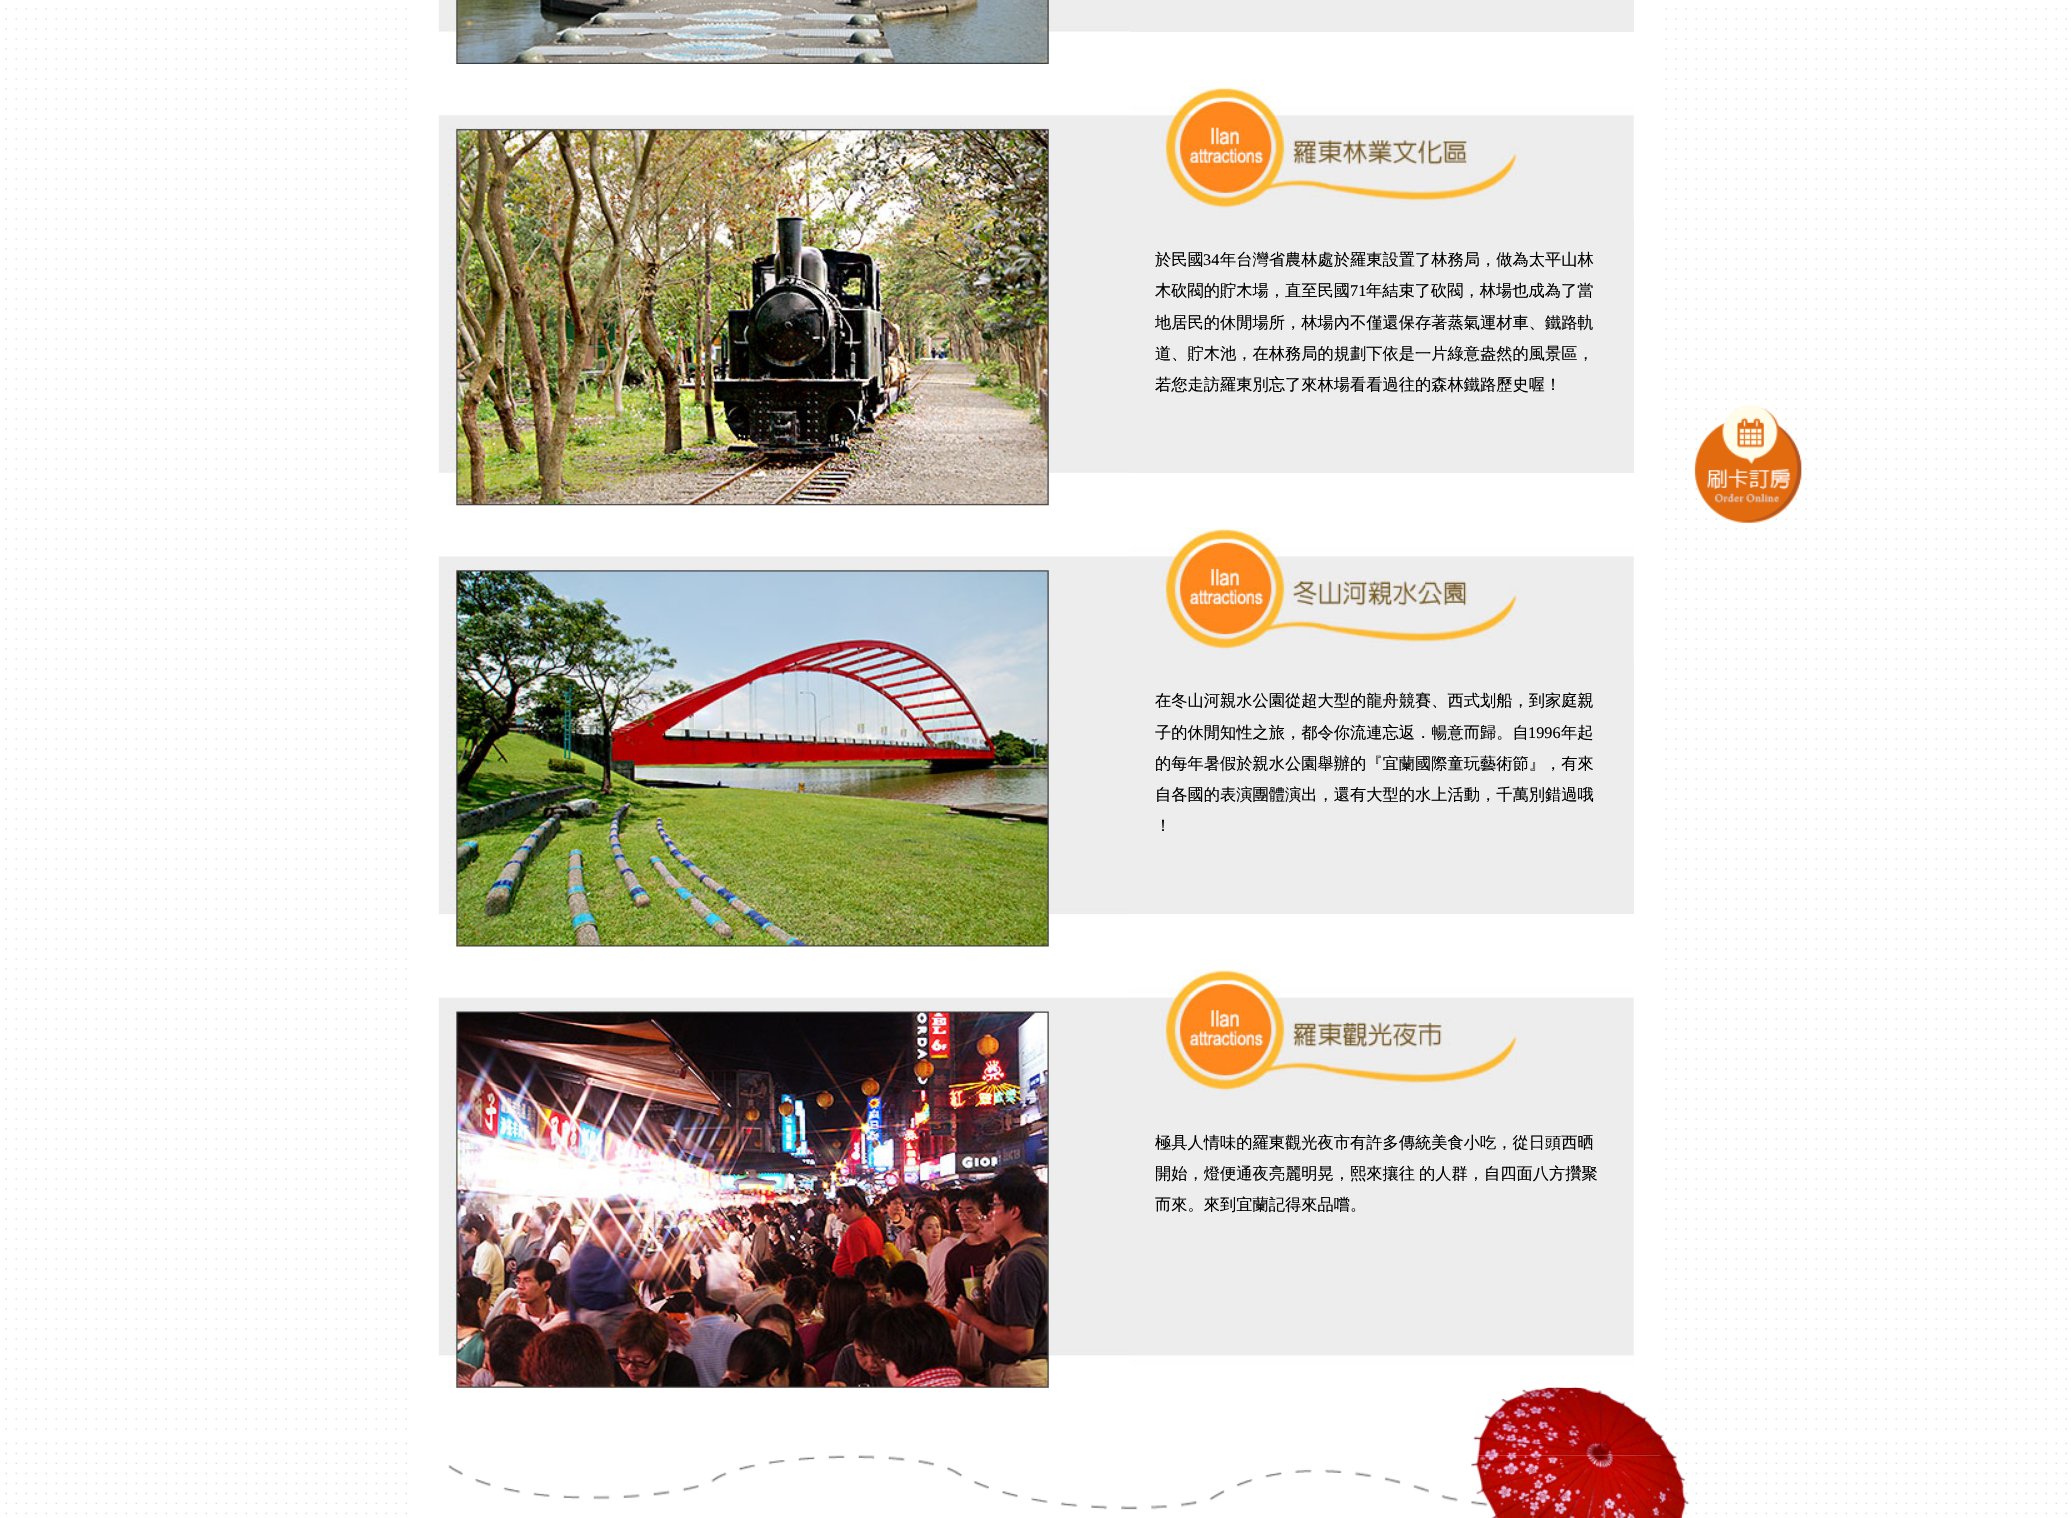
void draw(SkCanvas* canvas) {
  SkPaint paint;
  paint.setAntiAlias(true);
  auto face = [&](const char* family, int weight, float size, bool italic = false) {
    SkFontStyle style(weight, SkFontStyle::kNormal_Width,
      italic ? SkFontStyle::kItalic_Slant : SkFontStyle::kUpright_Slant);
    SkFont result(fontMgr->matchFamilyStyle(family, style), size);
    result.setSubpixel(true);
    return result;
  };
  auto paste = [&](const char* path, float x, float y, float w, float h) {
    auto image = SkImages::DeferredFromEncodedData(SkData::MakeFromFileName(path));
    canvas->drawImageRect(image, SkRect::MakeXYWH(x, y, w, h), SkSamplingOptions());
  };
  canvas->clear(0xffffffff);
  paste("img/1.png", 5, 8, 2062, 1428);
  paste("img/2.png", 5, 1435, 2062, 83);
  paste("img/3.png", 1473, 1384, 189, 72);
  paste("img/4.png", 438, 0, 692, 64);
  paint.setColor(0xffededed);
  canvas->drawRect(SkRect::MakeXYWH(1130, 0, 504, 32), paint);
  paste("img/5.png", 438, 115, 692, 391);
  paste("img/6.png", 1130, 86, 504, 135);
  canvas->drawRect(SkRect::MakeXYWH(1130, 221, 504, 252), paint);
  paste("img/7.png", 438, 556, 692, 391);
  paste("img/8.png", 1130, 527, 504, 135);
  canvas->drawRect(SkRect::MakeXYWH(1130, 662, 504, 252), paint);
  paste("img/9.png", 438, 997, 692, 391);
  paste("img/10.png", 1130, 969, 504, 135);
  paste("img/11.png", 1130, 1104, 504, 284);
  paste("img/12.png", 448, 1455, 1214, 63);
  paste("img/13.png", 1694, 405, 108, 118);
  auto f0 = face("WenQuanYi Zen Hei", 500, 16.25f);
  paint.setColor(0xff000000);
  canvas->drawString("於民國", 1155, 265, f0, paint);
  auto f1 = face("Liberation Serif", 400, 16.25f);
  canvas->drawString("34", 1203, 265, f1, paint);
  canvas->drawString("年台灣省農林處於羅東設置了林務局，做為太平山林", 1220, 265, f0, paint);
  canvas->drawString("木砍閥的貯木場，直至民國", 1155, 296, f0, paint);
  canvas->drawString("71", 1350, 296, f1, paint);
  {
    const struct { const char* s; float x, y; } items[] = {
      {"年結束了砍閥，林場也成為了當", 1366, 296},
      {"地居民的休閒場所，林場內不僅還保存著蒸氣運材車、鐵路軌", 1155, 328},
      {"道、貯木池，在林務局的規劃下依是一片綠意盎然的風景區，", 1155, 359},
      {"若您走訪羅東別忘了來林場看看過往的森林鐵路歷史喔！", 1155, 390},
      {"在冬山河親水公園從超大型的龍舟競賽、西式划船，到家庭親", 1155, 706},
      {"子的休閒知性之旅，都令你流連忘返．暢意而歸。自", 1155, 738},
    };
    for (auto [s, x, y] : items) {
      canvas->drawString(s, x, y, f0, paint);
    }
  }
  canvas->drawString("1996", 1528, 738, f1, paint);
  {
    const struct { const char* s; float x, y; } items[] = {
      {"年起", 1561, 738},
      {"的每年暑假於親水公園舉辦的『宜蘭國際童玩藝術節』，有來", 1155, 769},
      {"自各國的表演團體演出，還有大型的水上活動，千萬別錯過哦", 1155, 800},
      {"！", 1155, 831},
      {"極具人情味的羅東觀光夜市有許多傳統美食小吃，從日頭西晒", 1155, 1148},
      {"開始，燈便通夜亮麗明晃，熙來攘往", 1155, 1179},
      {"的人群，自四面八方攢聚", 1419, 1179},
      {"而來。來到宜蘭記得來品嚐。", 1155, 1210},
    };
    for (auto [s, x, y] : items) {
      canvas->drawString(s, x, y, f0, paint);
    }
  }
}
